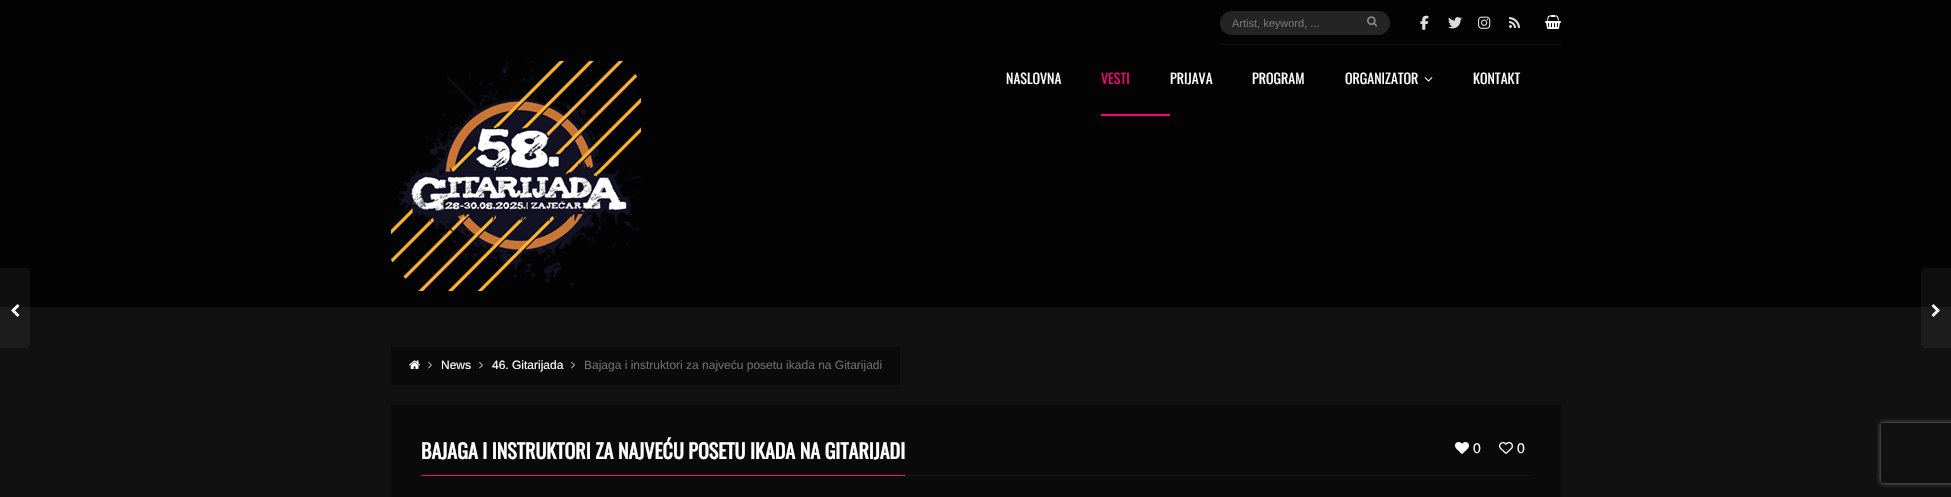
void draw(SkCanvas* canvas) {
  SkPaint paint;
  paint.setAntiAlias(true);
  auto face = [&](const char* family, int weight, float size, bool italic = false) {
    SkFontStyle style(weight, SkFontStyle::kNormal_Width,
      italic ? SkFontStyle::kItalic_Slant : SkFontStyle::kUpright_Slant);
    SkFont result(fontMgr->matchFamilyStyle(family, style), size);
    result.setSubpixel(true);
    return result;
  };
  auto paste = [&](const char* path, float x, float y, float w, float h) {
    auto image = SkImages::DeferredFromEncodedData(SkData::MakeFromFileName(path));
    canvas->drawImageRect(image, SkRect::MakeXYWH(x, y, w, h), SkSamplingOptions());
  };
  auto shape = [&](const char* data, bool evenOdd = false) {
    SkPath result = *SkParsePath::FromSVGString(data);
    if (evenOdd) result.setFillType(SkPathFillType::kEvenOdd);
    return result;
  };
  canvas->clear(0xff111111);
  paint.setColor(0xff030303);
  canvas->drawRect(SkRect::MakeXYWH(0, 0, 1951, 307), paint);
  paint.setColor(0xff131313);
  canvas->drawRect(SkRect::MakeXYWH(1220, 44, 341, 1), paint);
  paint.setColor(0xff242424);
  canvas->drawRoundRect(SkRect::MakeXYWH(1220, 11, 170, 24), 12, 12, paint);
  paste("img/1.png", 1367, 16, 11, 11);
  paste("img/2.png", 1420, 15, 9, 15);
  paste("img/3.png", 1448, 17, 14, 12);
  paste("img/4.png", 1478, 16, 13, 13);
  paste("img/5.png", 1509, 17, 11, 11);
  paste("img/6.png", 1545, 15, 16, 14);
  paste("img/7.png", 391, 61, 250, 230);
  paste("img/8.png", 1424, 77, 9, 5);
  paint.setColor(0xffff0078);
  canvas->drawRect(SkRect::MakeXYWH(1101, 114, 69, 2), paint);
  paint.setColor(0xff0a0a0a);
  canvas->drawRoundRect(SkRect::MakeXYWH(391, 347, 509, 38), 2, 2, paint);
  paste("img/9.png", 409, 360, 11, 9);
  paste("img/10.png", 428, 361, 4, 8);
  paste("img/10.png", 479, 361, 4, 8);
  paste("img/10.png", 571, 361, 4, 8);
  paint.setColor(0x12a7a7a7);
  canvas->drawPath(shape("M-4 268H26C28 268 30 270 30 272V344C30 346 28 348 26 348H-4Z"), paint);
  paste("img/11.png", 11, 304, 9, 13);
  canvas->drawPath(shape("M1925 268H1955V348H1925C1923 348 1921 346 1921 344V272C1921 270 1923 268 1925 268Z"), paint);
  paste("img/12.png", 1931, 304, 9, 13);
  paint.setColor(0xff0a0a0a);
  canvas->drawRoundRect(SkRect::MakeXYWH(391, 405, 1170, 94), 2, 2, paint);
  paint.setColor(0xffff0078);
  canvas->drawRect(SkRect::MakeXYWH(421, 475, 484, 1), paint);
  paste("img/13.png", 1455, 442, 14, 12);
  paste("img/14.png", 1499, 441, 14, 13);
  paint.setColor(0xff1a1a1a);
  canvas->drawRect(SkRect::MakeXYWH(905, 475, 626, 1), paint);
  canvas->save();
  canvas->clipPath(shape("M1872 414H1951V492H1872ZM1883 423H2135C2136 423 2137 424 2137 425V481C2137 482 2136 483 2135 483H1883C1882 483 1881 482 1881 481V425C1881 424 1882 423 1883 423Z", true), true);
  paint.setColor(0xff808080);
  paint.setMaskFilter(SkMaskFilter::MakeBlur(kNormal_SkBlurStyle, 2.5f));
  canvas->drawRoundRect(SkRect::MakeXYWH(1881, 423, 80, 60), 2, 2, paint);
  paint.setMaskFilter(nullptr);
  canvas->restore();
  canvas->save();
  canvas->clipRect(SkRect::MakeXYWH(1232, 17, 146, 12));
  auto f0 = face("Liberation Sans", 400, 11);
  paint.setColor(0xff757575);
  canvas->drawString("Artist, keyword, ...", 1232, 27, f0, paint);
  canvas->restore();
  auto f1 = face("Oswald", 400, 14);
  paint.setColor(0xffffffff);
  canvas->drawString("NASLOVNA", 1006, 84, f1, paint);
  paint.setColor(0xffff0078);
  canvas->drawString("VESTI", 1101, 84, f1, paint);
  paint.setColor(0xffffffff);
  {
    const struct { const char* s; float x, y; } items[] = {
      {"PRIJAVA", 1170, 84},
      {"PROGRAM", 1252, 84},
      {"ORGANIZATOR", 1345, 84},
      {"KONTAKT", 1473, 84},
    };
    for (auto [s, x, y] : items) {
      canvas->drawString(s, x, y, f1, paint);
    }
  }
  auto f2 = face("Liberation Sans", 400, 12);
  canvas->drawString("News", 441, 369, f2, paint);
  canvas->drawString("46. Gitarijada", 492, 369, f2, paint);
  paint.setColor(0xff6c6c6c);
  canvas->drawString("Bajaga i instruktori za najveću posetu ikada na Gitarijadi", 584, 369, f2, paint);
  auto f3 = face("Oswald", 700, 20);
  paint.setColor(0xffffffff);
  canvas->drawString("BAJAGA I INSTRUKTORI ZA NAJVEĆU POSETU IKADA NA GITARIJADI", 421, 459, f3, paint);
  auto f4 = face("Liberation Sans", 400, 14);
  canvas->drawString("0", 1473, 453, f4, paint);
  canvas->drawString("0", 1517, 453, f4, paint);
}
